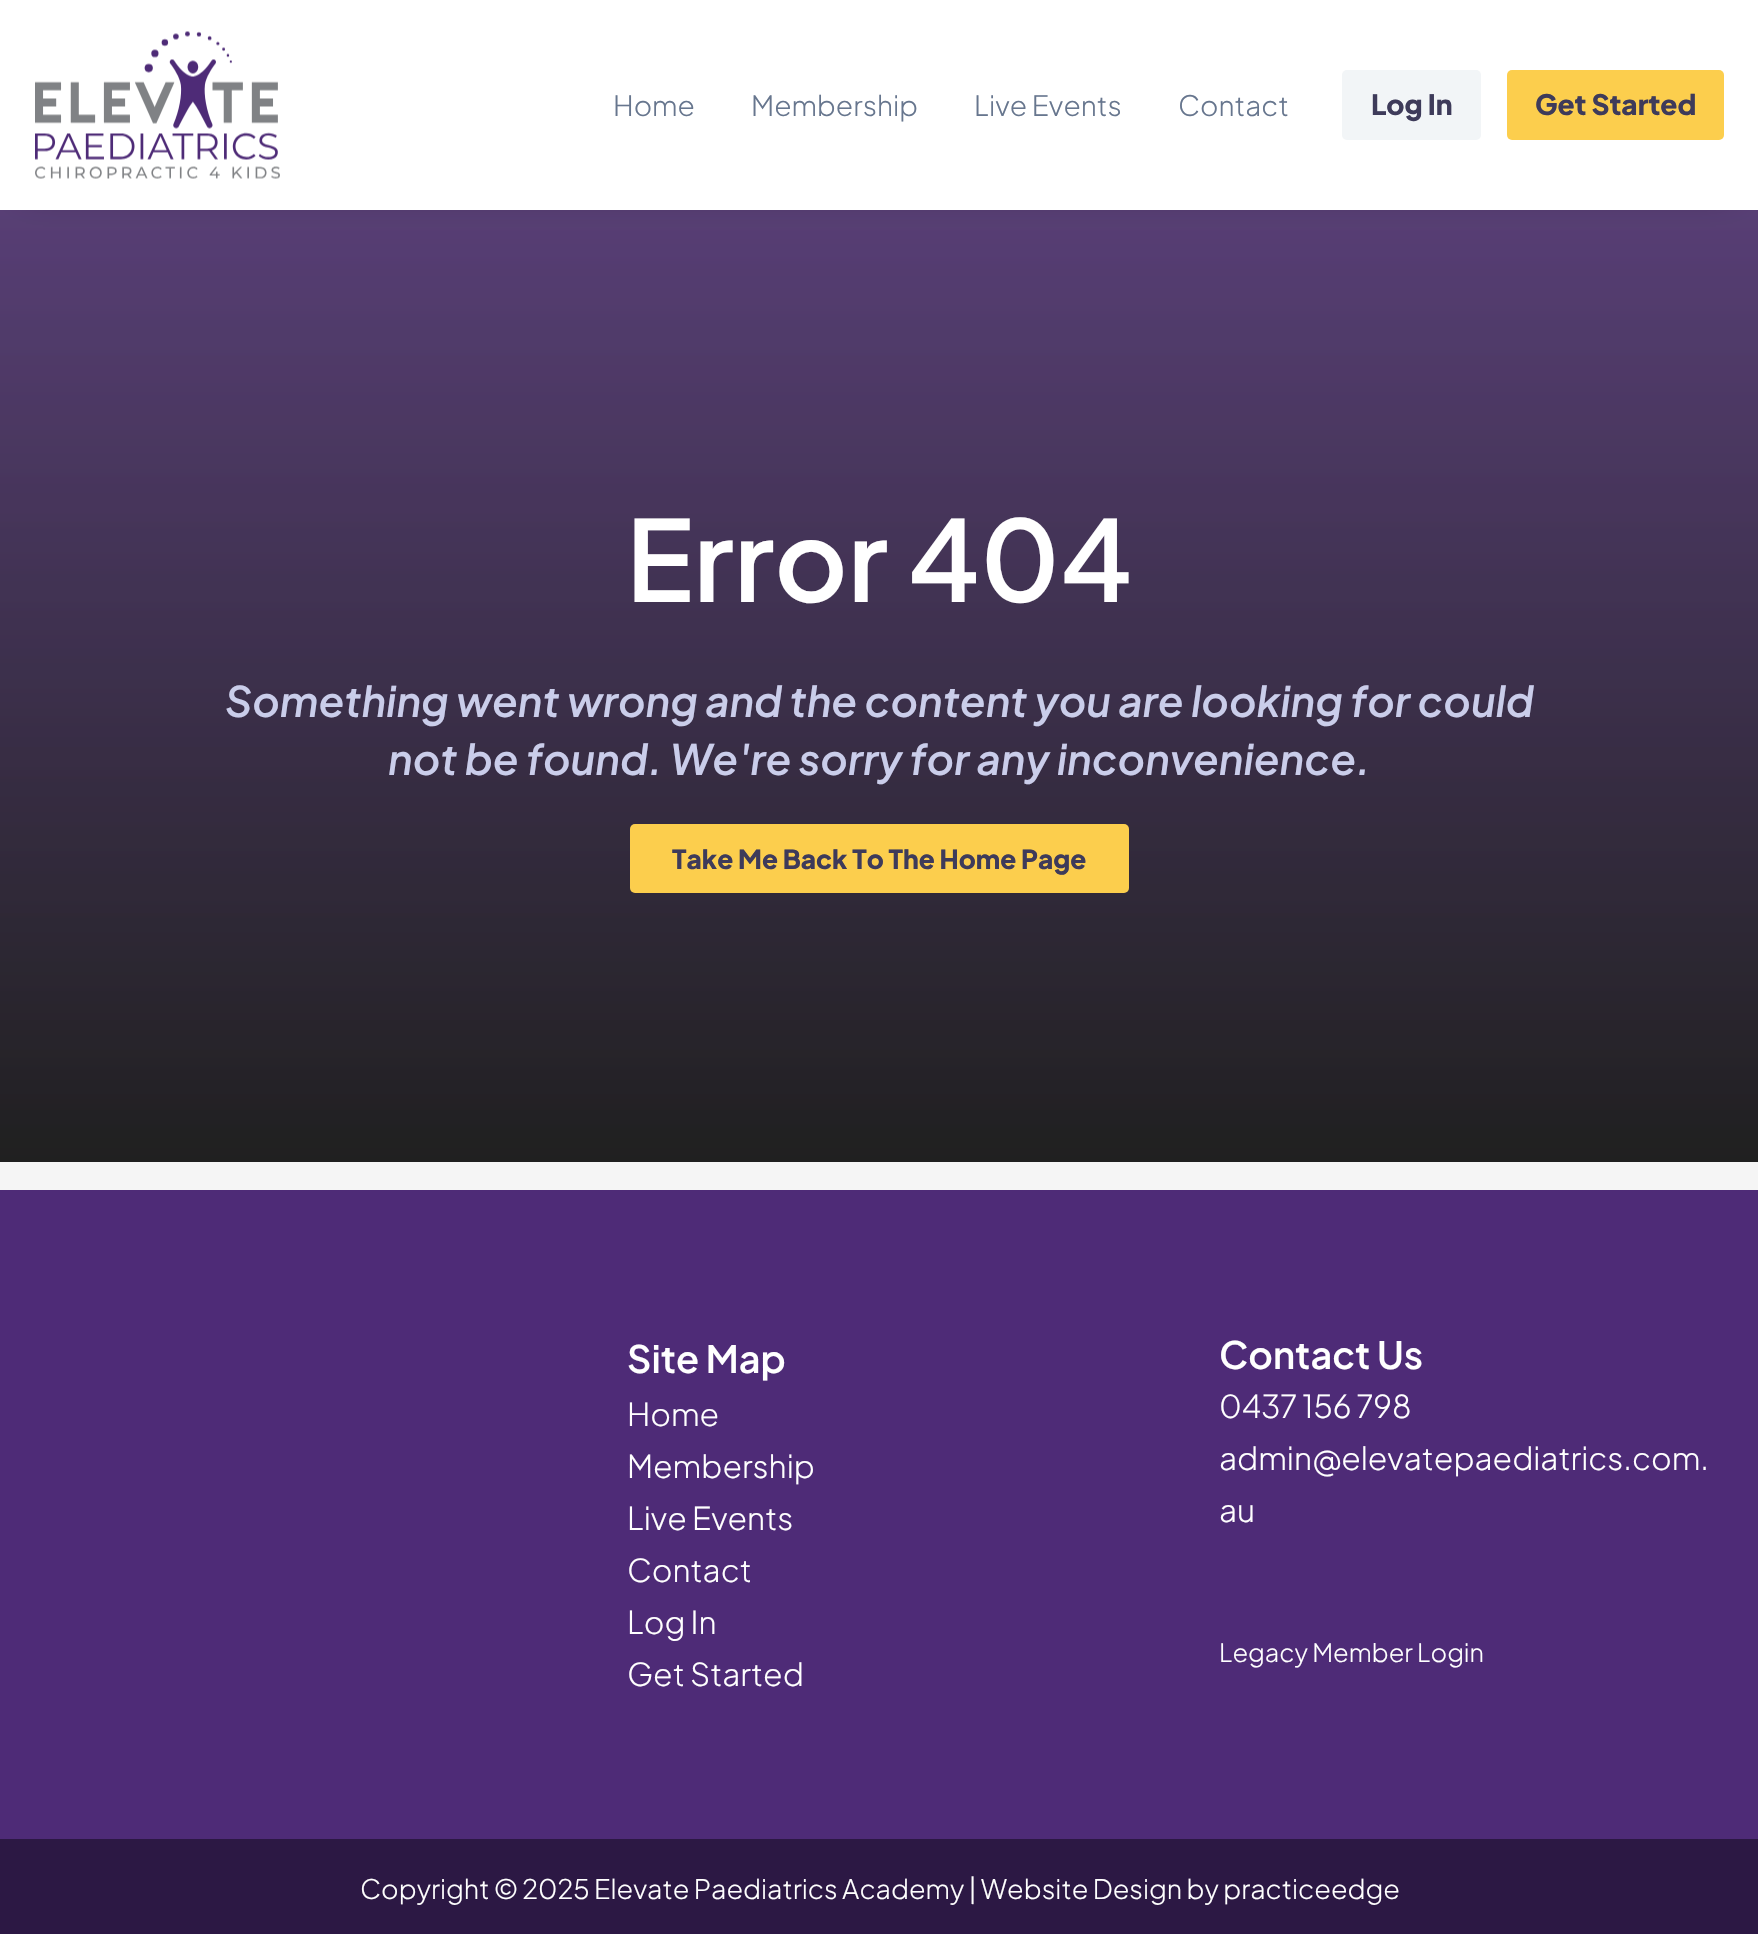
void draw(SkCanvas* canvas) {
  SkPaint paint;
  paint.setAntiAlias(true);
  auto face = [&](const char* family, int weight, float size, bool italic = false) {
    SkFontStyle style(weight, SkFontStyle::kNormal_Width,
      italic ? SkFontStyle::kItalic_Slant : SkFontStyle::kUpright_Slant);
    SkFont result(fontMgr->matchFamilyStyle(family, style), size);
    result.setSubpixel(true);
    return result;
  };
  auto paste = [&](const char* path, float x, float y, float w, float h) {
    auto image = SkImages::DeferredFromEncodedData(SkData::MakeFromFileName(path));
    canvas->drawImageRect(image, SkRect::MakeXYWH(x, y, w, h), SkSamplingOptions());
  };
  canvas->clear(0xfff5f5f5);
  {
    const SkColor colors[] = {0xff8c76a7, 0xff5a5a5a};
    const float stops[] = {0, 1};
    const SkPoint ends[] = {{879, 0}, {879, 1162}};
    paint.setShader(SkGradientShader::MakeLinear(ends, colors, stops, 2, SkTileMode::kClamp));
    paint.setAlpha(255);
  }
  canvas->drawRect(SkRect::MakeXYWH(0, 210, 1758, 952), paint);
  {
    const SkColor colors[] = {0xa64e2b77, 0xa6000000};
    const float stops[] = {0, 1};
    const SkPoint ends[] = {{879, 0}, {879, 1162}};
    paint.setShader(SkGradientShader::MakeLinear(ends, colors, stops, 2, SkTileMode::kClamp));
    paint.setAlpha(255);
  }
  canvas->drawRect(SkRect::MakeXYWH(0, 210, 1758, 952), paint);
  paint.setShader(nullptr);
  paint.setColor(0x80000000);
  paint.setMaskFilter(SkMaskFilter::MakeBlur(kNormal_SkBlurStyle, 17.5f));
  canvas->drawRect(SkRect::MakeXYWH(26, 30, 1707, 157), paint);
  paint.setMaskFilter(nullptr);
  paint.setColor(0xffffffff);
  canvas->drawRect(SkRect::MakeXYWH(0, 0, 1758, 210), paint);
  paste("img/1.png", 35, 31, 245, 148);
  paint.setColor(0xfff2f5f7);
  canvas->drawRoundRect(SkRect::MakeXYWH(1342, 70, 139, 70), 5, 5, paint);
  paint.setColor(0xfffcce4d);
  canvas->drawRoundRect(SkRect::MakeXYWH(1507, 70, 217, 70), 5, 5, paint);
  canvas->drawRoundRect(SkRect::MakeXYWH(630, 824, 499, 69), 5, 5, paint);
  paint.setColor(0xff4e2b77);
  canvas->drawRect(SkRect::MakeXYWH(0, 1190, 1758, 649), paint);
  paint.setColor(0xff2c1844);
  canvas->drawRect(SkRect::MakeXYWH(0, 1839, 1758, 95), paint);
  auto f0 = face("Plus Jakarta Sans", 300, 28);
  paint.setColor(0xff67768e);
  {
    const struct { const char* s; float x, y; } items[] = {
      {"Home", 613, 116},
      {"Membership", 751, 116},
      {"Live Events", 974, 116},
      {"Contact", 1178, 116},
    };
    for (auto [s, x, y] : items) {
      canvas->drawString(s, x, y, f0, paint);
    }
  }
  auto f1 = face("Plus Jakarta Sans", 800, 28);
  paint.setColor(0xff3e3b5a);
  canvas->drawString("Log In", 1371, 115, f1, paint);
  canvas->drawString("Get Started", 1535, 115, f1, paint);
  auto f2 = face("Plus Jakarta Sans", 600, 112);
  paint.setColor(0xffffffff);
  canvas->drawString("Error 404", 626, 602, f2, paint);
  auto f3 = face("Plus Jakarta Sans", 600, 42, true);
  paint.setColor(0xffcacdea);
  canvas->drawString("Something went wrong and the content you are looking for could", 225, 717, f3, paint);
  canvas->drawString("not be found. We're sorry for any inconvenience.", 388, 775, f3, paint);
  auto f4 = face("Plus Jakarta Sans", 800, 26.25f);
  paint.setColor(0xff3e3b5a);
  canvas->drawString("Take Me Back To The Home Page", 672, 869, f4, paint);
  auto f5 = face("Plus Jakarta Sans", 600, 37.75f);
  paint.setColor(0xffffffff);
  canvas->drawString("Site Map", 627, 1373, f5, paint);
  auto f6 = face("Plus Jakarta Sans", 300, 31.5f);
  {
    const struct { const char* s; float x, y; } items[] = {
      {"Home", 627, 1426},
      {"Membership", 627, 1478},
      {"Live Events", 627, 1530},
      {"Contact", 627, 1582},
      {"Log In", 627, 1634},
      {"Get Started", 627, 1686},
    };
    for (auto [s, x, y] : items) {
      canvas->drawString(s, x, y, f6, paint);
    }
  }
  canvas->drawString("Contact Us", 1219, 1369, f5, paint);
  {
    const struct { const char* s; float x, y; } items[] = {
      {"0437 156 798", 1219, 1418},
      {"admin@elevatepaediatrics.com.", 1219, 1470},
      {"au", 1219, 1522},
    };
    for (auto [s, x, y] : items) {
      canvas->drawString(s, x, y, f6, paint);
    }
  }
  auto f7 = face("Plus Jakarta Sans", 300, 25.25f);
  canvas->drawString("Legacy Member Login", 1219, 1662, f7, paint);
  auto f8 = face("Plus Jakarta Sans", 300, 26.8f);
  canvas->drawString("Copyright © 2025 Elevate Paediatrics Academy | Website Design by practiceedge", 360, 1899, f8, paint);
}
